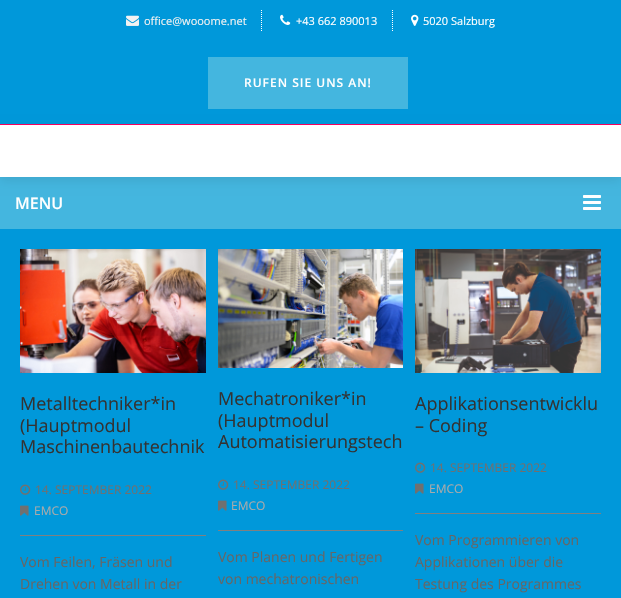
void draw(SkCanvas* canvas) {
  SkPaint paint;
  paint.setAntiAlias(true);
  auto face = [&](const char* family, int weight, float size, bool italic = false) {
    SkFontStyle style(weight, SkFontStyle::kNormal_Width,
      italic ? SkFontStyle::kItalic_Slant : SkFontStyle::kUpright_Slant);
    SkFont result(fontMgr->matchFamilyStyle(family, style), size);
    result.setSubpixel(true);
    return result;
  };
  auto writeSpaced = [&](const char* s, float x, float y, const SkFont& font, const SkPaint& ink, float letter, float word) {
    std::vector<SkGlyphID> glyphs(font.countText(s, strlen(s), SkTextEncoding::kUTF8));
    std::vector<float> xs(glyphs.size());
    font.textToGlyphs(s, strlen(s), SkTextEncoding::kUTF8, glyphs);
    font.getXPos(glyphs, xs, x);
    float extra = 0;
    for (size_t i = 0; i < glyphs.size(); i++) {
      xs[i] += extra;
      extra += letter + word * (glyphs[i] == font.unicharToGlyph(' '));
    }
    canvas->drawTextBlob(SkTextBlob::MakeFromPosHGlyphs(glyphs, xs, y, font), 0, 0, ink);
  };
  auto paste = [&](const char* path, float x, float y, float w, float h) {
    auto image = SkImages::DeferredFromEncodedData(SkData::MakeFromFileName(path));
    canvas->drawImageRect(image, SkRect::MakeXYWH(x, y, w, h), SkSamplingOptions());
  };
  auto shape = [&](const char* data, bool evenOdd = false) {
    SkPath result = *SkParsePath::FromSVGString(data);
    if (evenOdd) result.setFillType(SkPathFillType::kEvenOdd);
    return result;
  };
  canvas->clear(0xff0098da);
  paint.setColor(0xff44b6df);
  canvas->drawRect(SkRect::MakeXYWH(0, 177, 621, 52), paint);
  paste("img/4.png", 583, 195, 18, 15);
  paint.setColor(0x14000000);
  paint.setMaskFilter(SkMaskFilter::MakeBlur(kNormal_SkBlurStyle, 5));
  canvas->drawRect(SkRect::MakeXYWH(0, 129, 621, 52), paint);
  paint.setMaskFilter(nullptr);
  paint.setColor(0xfff6005c);
  canvas->drawRect(SkRect::MakeXYWH(0, 124, 621, 1), paint);
  paint.setStroke(true);
  paint.setStrokeWidth(1);
  paint.setColor(0xffffffff);
  paint.setPathEffect(SkDashPathEffect::Make({{1, 1}}, 0));
  canvas->drawPath(shape("M261.5 10V32"), paint);
  paint.setPathEffect(nullptr);
  paste("img/1.png", 126, 15, 13, 11);
  paint.setPathEffect(SkDashPathEffect::Make({{1, 1}}, 0));
  canvas->drawPath(shape("M392.5 10V32"), paint);
  paint.setPathEffect(nullptr);
  paste("img/2.png", 280, 14, 11, 11);
  paste("img/3.png", 411, 14, 8, 12);
  paint.setStroke(false);
  paint.setColor(0xff44b6df);
  canvas->drawRect(SkRect::MakeXYWH(208, 57, 200, 52), paint);
  paint.setColor(0xffffffff);
  canvas->drawRect(SkRect::MakeXYWH(0, 125, 621, 52), paint);
  paste("img/5.png", 20, 249, 186, 124);
  paint.setColor(0xff808080);
  canvas->drawRect(SkRect::MakeXYWH(20, 535, 186, 1), paint);
  paste("img/6.png", 20, 484, 11, 11);
  paste("img/7.png", 20, 505, 9, 11);
  paste("img/8.png", 218, 249, 185, 119);
  canvas->drawRect(SkRect::MakeXYWH(218, 530, 185, 1), paint);
  paste("img/6.png", 218, 479, 11, 11);
  paste("img/7.png", 218, 500, 9, 11);
  paste("img/9.png", 415, 249, 186, 124);
  canvas->drawRect(SkRect::MakeXYWH(415, 513, 186, 1), paint);
  paste("img/6.png", 415, 462, 11, 11);
  paste("img/7.png", 415, 483, 9, 11);
  auto f0 = face("Open Sans", 400, 11);
  paint.setColor(0xfff2f2f2);
  canvas->drawString("office@wooome.net", 144, 25, f0, paint);
  paint.setColor(0xffffffff);
  canvas->drawString("+43 662 890013", 296, 25, f0, paint);
  canvas->drawString("5020 Salzburg", 423, 25, f0, paint);
  auto f1 = face("Open Sans", 600, 12);
  writeSpaced("RUFEN SIE UNS AN!", 244, 87, f1, paint, 1, 0);
  auto f2 = face("Open Sans", 600, 16);
  canvas->drawString("MENU", 15, 209, f2, paint);
  auto f3 = face("Open Sans", 400, 18);
  paint.setColor(0xff333333);
  {
    const struct { const char* s; float x, y; } items[] = {
      {"Metalltechniker*in", 20, 410},
      {"(Hauptmodul", 20, 432},
      {"Maschinenbautechnik", 20, 453},
    };
    for (auto [s, x, y] : items) {
      canvas->drawString(s, x, y, f3, paint);
    }
  }
  auto f4 = face("Open Sans", 400, 12);
  paint.setColor(0xff707070);
  canvas->drawString("14. SEPTEMBER 2022", 35, 494, f4, paint);
  paint.setColor(0xffaaaaaa);
  canvas->drawString("EMCO", 34, 515, f4, paint);
  auto f5 = face("Open Sans", 400, 14);
  paint.setColor(0xff666666);
  canvas->drawString("Vom Feilen, Fräsen und", 20, 567, f5, paint);
  canvas->drawString("Drehen von Metall in der", 20, 589, f5, paint);
  paint.setColor(0xff333333);
  {
    const struct { const char* s; float x, y; } items[] = {
      {"Mechatroniker*in", 218, 405},
      {"(Hauptmodul", 218, 427},
      {"Automatisierungstech", 218, 448},
    };
    for (auto [s, x, y] : items) {
      canvas->drawString(s, x, y, f3, paint);
    }
  }
  paint.setColor(0xff707070);
  canvas->drawString("14. SEPTEMBER 2022", 233, 489, f4, paint);
  paint.setColor(0xffaaaaaa);
  canvas->drawString("EMCO", 231, 510, f4, paint);
  paint.setColor(0xff666666);
  canvas->drawString("Vom Planen und Fertigen", 218, 562, f5, paint);
  canvas->drawString("von mechatronischen", 218, 584, f5, paint);
  paint.setColor(0xff333333);
  canvas->drawString("Applikationsentwicklu", 415, 410, f3, paint);
  canvas->drawString("– Coding", 415, 432, f3, paint);
  paint.setColor(0xff707070);
  canvas->drawString("14. SEPTEMBER 2022", 430, 472, f4, paint);
  paint.setColor(0xffaaaaaa);
  canvas->drawString("EMCO", 429, 493, f4, paint);
  paint.setColor(0xff666666);
  {
    const struct { const char* s; float x, y; } items[] = {
      {"Vom Programmieren von", 415, 545},
      {"Applikationen über die", 415, 567},
      {"Testung des Programmes", 415, 589},
    };
    for (auto [s, x, y] : items) {
      canvas->drawString(s, x, y, f5, paint);
    }
  }
}
